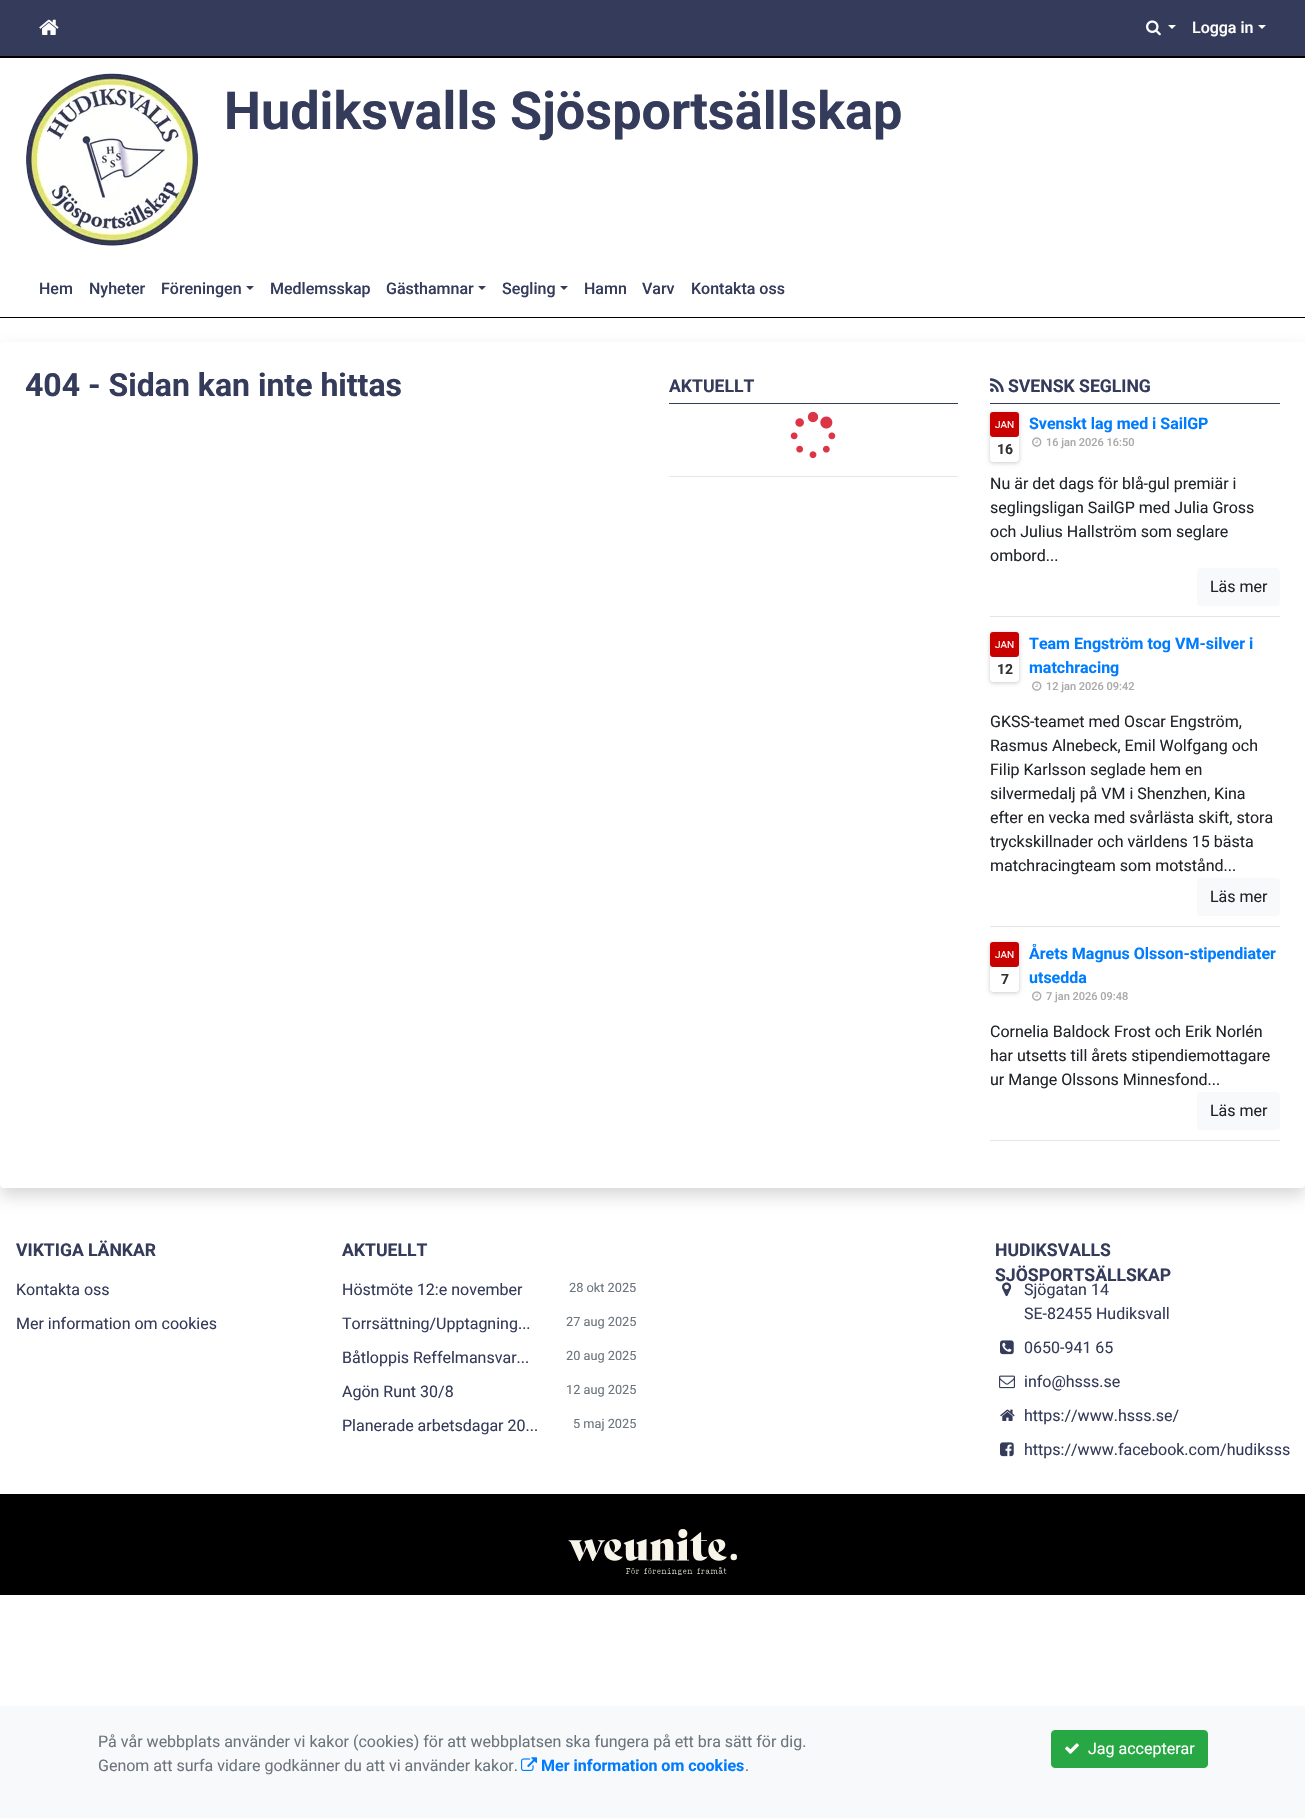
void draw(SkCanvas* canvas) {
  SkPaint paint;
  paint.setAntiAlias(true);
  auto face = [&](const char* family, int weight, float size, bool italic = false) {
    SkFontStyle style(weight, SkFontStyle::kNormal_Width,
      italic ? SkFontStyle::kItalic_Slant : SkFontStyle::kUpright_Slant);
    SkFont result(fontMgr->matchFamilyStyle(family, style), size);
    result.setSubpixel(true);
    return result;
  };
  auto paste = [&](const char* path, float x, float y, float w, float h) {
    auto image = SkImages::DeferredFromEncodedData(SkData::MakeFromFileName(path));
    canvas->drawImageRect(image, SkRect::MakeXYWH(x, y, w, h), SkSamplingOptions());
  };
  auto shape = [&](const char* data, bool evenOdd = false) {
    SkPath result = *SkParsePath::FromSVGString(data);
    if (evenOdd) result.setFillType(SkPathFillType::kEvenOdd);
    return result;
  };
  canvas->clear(0xffffffff);
  paint.setColor(0xff353b5a);
  canvas->drawRect(SkRect::MakeXYWH(0, 0, 1305, 56), paint);
  paint.setColor(0xff000000);
  canvas->drawRect(SkRect::MakeXYWH(0, 56, 1305, 2), paint);
  paste("img/1.png", 39, 19, 20, 16);
  paste("img/2.png", 1146, 20, 15, 16);
  paint.setColor(0xffffffff);
  canvas->drawPath(shape("M1168 25H1176L1172 29Z"), paint);
  canvas->drawPath(shape("M1258 25H1266L1262 29Z"), paint);
  paste("img/3.png", 26, 73, 173, 173);
  paint.setColor(0xff353b5a);
  canvas->drawPath(shape("M246 286H254L250 290Z"), paint);
  canvas->drawPath(shape("M478 286H486L482 290Z"), paint);
  canvas->drawPath(shape("M560 286H568L564 290Z"), paint);
  paint.setColor(0xff000000);
  canvas->drawRect(SkRect::MakeXYWH(0, 317, 1305, 1), paint);
  paint.setColor(0x26000000);
  paint.setMaskFilter(SkMaskFilter::MakeBlur(kNormal_SkBlurStyle, 8));
  canvas->drawRoundRect(SkRect::MakeXYWH(0, 350, 1305, 846), 4, 4, paint);
  paint.setMaskFilter(nullptr);
  paint.setColor(0xffffffff);
  canvas->drawRoundRect(SkRect::MakeXYWH(0, 342, 1305, 846), 4, 4, paint);
  paint.setColor(0xff353b5a);
  canvas->drawRect(SkRect::MakeXYWH(669, 403, 289, 1), paint);
  paste("img/4.png", 790, 411, 46, 48);
  paint.setColor(0xffe6e6e6);
  canvas->drawRect(SkRect::MakeXYWH(669, 476, 289, 1), paint);
  paint.setColor(0xff353b5a);
  canvas->drawRect(SkRect::MakeXYWH(990, 403, 290, 1), paint);
  paste("img/5.png", 990, 378, 14, 14);
  paint.setColor(0xffe5e5e5);
  canvas->drawRect(SkRect::MakeXYWH(990, 616, 290, 1), paint);
  canvas->save();
  canvas->clipPath(shape("M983 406H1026V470H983ZM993 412H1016C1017.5 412 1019 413.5 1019 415V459C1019 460.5 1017.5 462 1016 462H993C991.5 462 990 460.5 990 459V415C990 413.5 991.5 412 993 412Z", true), true);
  paint.setColor(0x33000000);
  paint.setMaskFilter(SkMaskFilter::MakeBlur(kNormal_SkBlurStyle, 2));
  canvas->drawRoundRect(SkRect::MakeXYWH(990, 413, 29, 50), 3, 3, paint);
  paint.setMaskFilter(nullptr);
  canvas->restore();
  paint.setColor(0xffc80000);
  canvas->drawRoundRect(SkRect::MakeXYWH(990, 412, 29, 25), 3, 3, paint);
  paste("img/6.png", 1032, 437, 10, 10);
  paint.setColor(0xfff8f9fa);
  canvas->drawRoundRect(SkRect::MakeXYWH(1197, 568, 83, 38), 4, 4, paint);
  paint.setColor(0xffe5e5e5);
  canvas->drawRect(SkRect::MakeXYWH(990, 926, 290, 1), paint);
  canvas->save();
  canvas->clipPath(shape("M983 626H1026V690H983ZM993 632H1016C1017.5 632 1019 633.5 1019 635V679C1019 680.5 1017.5 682 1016 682H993C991.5 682 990 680.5 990 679V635C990 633.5 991.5 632 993 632Z", true), true);
  paint.setColor(0x33000000);
  paint.setMaskFilter(SkMaskFilter::MakeBlur(kNormal_SkBlurStyle, 2));
  canvas->drawRoundRect(SkRect::MakeXYWH(990, 633, 29, 50), 3, 3, paint);
  paint.setMaskFilter(nullptr);
  canvas->restore();
  paint.setColor(0xffc80000);
  canvas->drawRoundRect(SkRect::MakeXYWH(990, 632, 29, 25), 3, 3, paint);
  paste("img/6.png", 1032, 681, 10, 10);
  paint.setColor(0xfff8f9fa);
  canvas->drawRoundRect(SkRect::MakeXYWH(1197, 878, 83, 38), 4, 4, paint);
  paint.setColor(0xffe5e5e5);
  canvas->drawRect(SkRect::MakeXYWH(990, 1140, 290, 1), paint);
  canvas->save();
  canvas->clipPath(shape("M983 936H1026V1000H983ZM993 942H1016C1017.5 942 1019 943.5 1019 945V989C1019 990.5 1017.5 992 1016 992H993C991.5 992 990 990.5 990 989V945C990 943.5 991.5 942 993 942Z", true), true);
  paint.setColor(0x33000000);
  paint.setMaskFilter(SkMaskFilter::MakeBlur(kNormal_SkBlurStyle, 2));
  canvas->drawRoundRect(SkRect::MakeXYWH(990, 943, 29, 50), 3, 3, paint);
  paint.setMaskFilter(nullptr);
  canvas->restore();
  paint.setColor(0xffc80000);
  canvas->drawRoundRect(SkRect::MakeXYWH(990, 942, 29, 25), 3, 3, paint);
  paste("img/6.png", 1032, 991, 10, 10);
  paint.setColor(0xfff8f9fa);
  canvas->drawRoundRect(SkRect::MakeXYWH(1197, 1092, 83, 38), 4, 4, paint);
  paste("img/7.png", 1002, 1282, 10, 15);
  paste("img/8.png", 1000, 1340, 14, 15);
  paste("img/9.png", 999, 1375, 16, 14);
  paste("img/10.png", 1000, 1409, 15, 12);
  paste("img/11.png", 1000, 1442, 14, 15);
  paint.setColor(0xff000000);
  canvas->drawRect(SkRect::MakeXYWH(0, 1494, 1305, 101), paint);
  paste("img/12.png", 568, 1529, 169, 46);
  paint.setColor(0xfff8f9fa);
  canvas->drawRect(SkRect::MakeXYWH(0, 1706, 1305, 112), paint);
  paste("img/13.png", 521, 1757, 16, 14);
  paint.setColor(0xff28a745);
  canvas->drawRoundRect(SkRect::MakeXYWH(1051.5f, 1730.5f, 156, 37), 3.5f, 3.5f, paint);
  paint.setStroke(true);
  paint.setStrokeWidth(1);
  canvas->drawRoundRect(SkRect::MakeXYWH(1051.5f, 1730.5f, 156, 37), 3.5f, 3.5f, paint);
  paste("img/14.png", 1065, 1743, 14, 11);
  auto f0 = face("Roboto", 500, 16);
  paint.setStroke(false);
  paint.setColor(0xffffffff);
  canvas->drawString("Logga in", 1192, 33, f0, paint);
  auto f1 = face("Roboto", 700, 52.25f);
  paint.setColor(0xff353b5a);
  canvas->drawString("Hudiksvalls Sjösportsällskap", 224, 129, f1, paint);
  {
    const struct { const char* s; float x, y; } items[] = {
      {"Hem", 39, 294},
      {"Nyheter", 89, 294},
      {"Föreningen", 161, 294},
      {"Medlemsskap", 270, 294},
      {"Gästhamnar", 386, 294},
      {"Segling", 502, 294},
      {"Hamn", 584, 294},
      {"Varv", 642, 294},
      {"Kontakta oss", 691, 294},
    };
    for (auto [s, x, y] : items) {
      canvas->drawString(s, x, y, f0, paint);
    }
  }
  auto f2 = face("Roboto", 700, 32);
  canvas->drawString("404 - Sidan kan inte hittas", 25, 396, f2, paint);
  auto f3 = face("Roboto", 700, 17.6f);
  canvas->drawString("AKTUELLT", 669, 392, f3, paint);
  canvas->drawString("SVENSK SEGLING", 1008, 392, f3, paint);
  auto f4 = face("Roboto", 400, 10);
  paint.setColor(0xffffffff);
  canvas->drawString("JAN", 995, 428, f4, paint);
  auto f5 = face("Roboto", 700, 14);
  paint.setColor(0xff333333);
  canvas->drawString("16", 997, 454, f5, paint);
  auto f6 = face("Roboto", 700, 16);
  paint.setColor(0xff007cff);
  canvas->drawString("Svenskt lag med i SailGP", 1029, 429, f6, paint);
  auto f7 = face("Roboto", 500, 11);
  paint.setColor(0xffaaaaaa);
  canvas->drawString("16 jan 2026 16:50", 1046, 446, f7, paint);
  auto f8 = face("Roboto", 400, 16);
  paint.setColor(0xff212529);
  {
    const struct { const char* s; float x, y; } items[] = {
      {"Nu är det dags för blå-gul premiär i", 990, 489},
      {"seglingsligan SailGP med Julia Gross", 990, 513},
      {"och Julius Hallström som seglare", 990, 537},
      {"ombord...", 990, 561},
      {"Läs mer", 1210, 592},
    };
    for (auto [s, x, y] : items) {
      canvas->drawString(s, x, y, f8, paint);
    }
  }
  paint.setColor(0xffffffff);
  canvas->drawString("JAN", 995, 648, f4, paint);
  paint.setColor(0xff333333);
  canvas->drawString("12", 997, 674, f5, paint);
  paint.setColor(0xff007cff);
  canvas->drawString("Team Engström tog VM-silver i", 1029, 649, f6, paint);
  canvas->drawString("matchracing", 1029, 673, f6, paint);
  paint.setColor(0xffaaaaaa);
  canvas->drawString("12 jan 2026 09:42", 1046, 690, f7, paint);
  paint.setColor(0xff212529);
  {
    const struct { const char* s; float x, y; } items[] = {
      {"GKSS-teamet med Oscar Engström,", 990, 727},
      {"Rasmus Alnebeck, Emil Wolfgang och", 990, 751},
      {"Filip Karlsson seglade hem en", 990, 775},
      {"silvermedalj på VM i Shenzhen, Kina", 990, 799},
      {"efter en vecka med svårlästa skift, stora", 990, 823},
      {"tryckskillnader och världens 15 bästa", 990, 847},
      {"matchracingteam som motstånd...", 990, 871},
      {"Läs mer", 1210, 902},
    };
    for (auto [s, x, y] : items) {
      canvas->drawString(s, x, y, f8, paint);
    }
  }
  paint.setColor(0xffffffff);
  canvas->drawString("JAN", 995, 958, f4, paint);
  paint.setColor(0xff333333);
  canvas->drawString("7", 1001, 984, f5, paint);
  paint.setColor(0xff007cff);
  canvas->drawString("Årets Magnus Olsson-stipendiater", 1029, 959, f6, paint);
  canvas->drawString("utsedda", 1029, 983, f6, paint);
  paint.setColor(0xffaaaaaa);
  canvas->drawString("7 jan 2026 09:48", 1046, 1000, f7, paint);
  paint.setColor(0xff212529);
  {
    const struct { const char* s; float x, y; } items[] = {
      {"Cornelia Baldock Frost och Erik Norlén", 990, 1037},
      {"har utsetts till årets stipendiemottagare", 990, 1061},
      {"ur Mange Olssons Minnesfond...", 990, 1085},
      {"Läs mer", 1210, 1116},
    };
    for (auto [s, x, y] : items) {
      canvas->drawString(s, x, y, f8, paint);
    }
  }
  paint.setColor(0xff353b5a);
  canvas->drawString("VIKTIGA LÄNKAR", 16, 1256, f3, paint);
  canvas->drawString("Kontakta oss", 16, 1295, f8, paint);
  canvas->drawString("Mer information om cookies", 16, 1329, f8, paint);
  canvas->drawString("AKTUELLT", 342, 1256, f3, paint);
  canvas->drawString("Höstmöte 12:e november", 342, 1295, f8, paint);
  auto f9 = face("Roboto", 400, 12.75f);
  paint.setColor(0xff6c757d);
  canvas->drawString("28 okt 2025", 569, 1292, f9, paint);
  paint.setColor(0xff353b5a);
  canvas->drawString("Torrsättning/Upptagning...", 342, 1329, f8, paint);
  paint.setColor(0xff6c757d);
  canvas->drawString("27 aug 2025", 566, 1326, f9, paint);
  paint.setColor(0xff353b5a);
  canvas->drawString("Båtloppis Reffelmansvar...", 342, 1363, f8, paint);
  paint.setColor(0xff6c757d);
  canvas->drawString("20 aug 2025", 566, 1360, f9, paint);
  paint.setColor(0xff353b5a);
  canvas->drawString("Agön Runt 30/8", 342, 1397, f8, paint);
  paint.setColor(0xff6c757d);
  canvas->drawString("12 aug 2025", 566, 1394, f9, paint);
  paint.setColor(0xff353b5a);
  canvas->drawString("Planerade arbetsdagar 20...", 342, 1431, f8, paint);
  paint.setColor(0xff6c757d);
  canvas->drawString("5 maj 2025", 573, 1428, f9, paint);
  paint.setColor(0xff353b5a);
  canvas->drawString("HUDIKSVALLS", 995, 1256, f3, paint);
  canvas->drawString("SJÖSPORTSÄLLSKAP", 995, 1281, f3, paint);
  {
    const struct { const char* s; float x, y; } items[] = {
      {"Sjögatan 14", 1024, 1295},
      {"SE-82455 Hudiksvall", 1024, 1319},
      {"0650-941 65", 1024, 1353},
      {"info@hsss.se", 1024, 1387},
      {"https://www.hsss.se/", 1024, 1421},
      {"https://www.facebook.com/hudiksss", 1024, 1455},
    };
    for (auto [s, x, y] : items) {
      canvas->drawString(s, x, y, f8, paint);
    }
  }
  paint.setColor(0xff6c757d);
  canvas->drawString("På vår webbplats använder vi kakor (cookies) för att webbplatsen ska fungera på ett bra sätt för dig.", 98, 1747, f8, paint);
  canvas->drawString("Genom att surfa vidare godkänner du att vi använder kakor.", 98, 1771, f8, paint);
  paint.setColor(0xff007cff);
  canvas->drawString("Mer information om cookies", 541, 1771, f6, paint);
  paint.setColor(0xff6c757d);
  canvas->drawString(".", 745, 1771, f8, paint);
  paint.setColor(0xffffffff);
  canvas->drawString("Jag accepterar", 1088, 1754, f8, paint);
}
